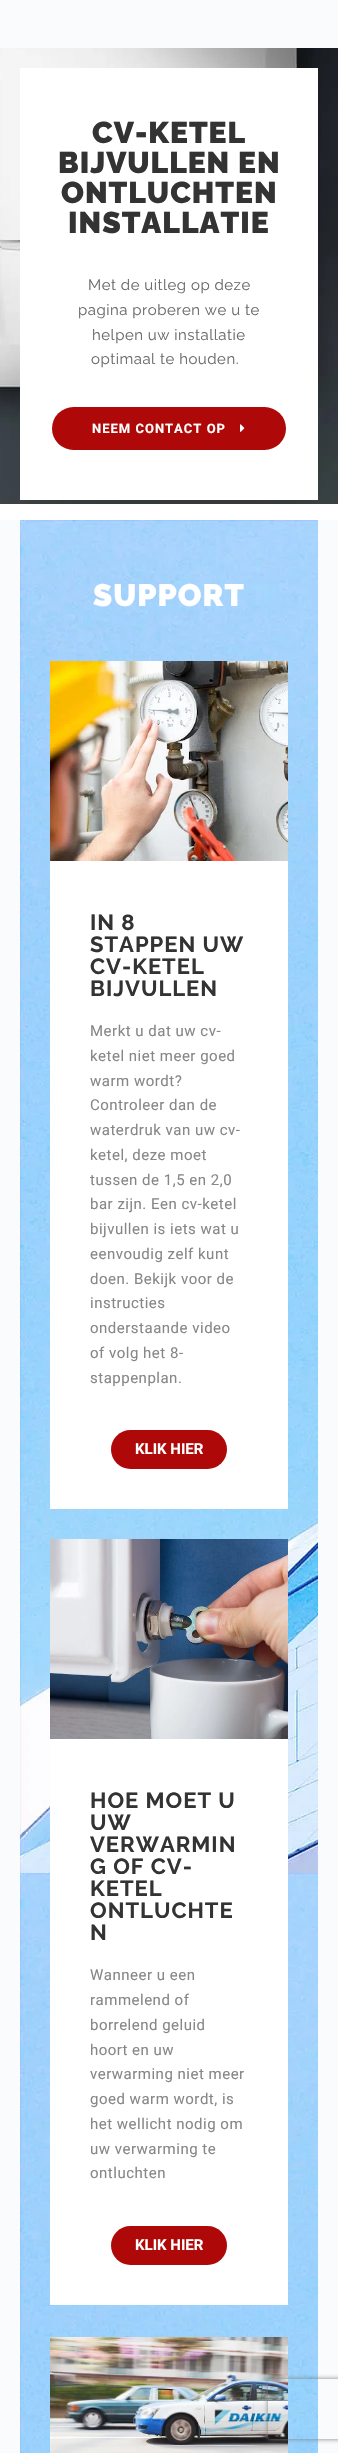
void draw(SkCanvas* canvas) {
  SkPaint paint;
  paint.setAntiAlias(true);
  auto face = [&](const char* family, int weight, float size, bool italic = false) {
    SkFontStyle style(weight, SkFontStyle::kNormal_Width,
      italic ? SkFontStyle::kItalic_Slant : SkFontStyle::kUpright_Slant);
    SkFont result(fontMgr->matchFamilyStyle(family, style), size);
    result.setSubpixel(true);
    return result;
  };
  auto writeSpaced = [&](const char* s, float x, float y, const SkFont& font, const SkPaint& ink, float letter, float word) {
    std::vector<SkGlyphID> glyphs(font.countText(s, strlen(s), SkTextEncoding::kUTF8));
    std::vector<float> xs(glyphs.size());
    font.textToGlyphs(s, strlen(s), SkTextEncoding::kUTF8, glyphs);
    font.getXPos(glyphs, xs, x);
    float extra = 0;
    for (size_t i = 0; i < glyphs.size(); i++) {
      xs[i] += extra;
      extra += letter + word * (glyphs[i] == font.unicharToGlyph(' '));
    }
    canvas->drawTextBlob(SkTextBlob::MakeFromPosHGlyphs(glyphs, xs, y, font), 0, 0, ink);
  };
  auto paste = [&](const char* path, float x, float y, float w, float h) {
    auto image = SkImages::DeferredFromEncodedData(SkData::MakeFromFileName(path));
    canvas->drawImageRect(image, SkRect::MakeXYWH(x, y, w, h), SkSamplingOptions());
  };
  auto shape = [&](const char* data, bool evenOdd = false) {
    SkPath result = *SkParsePath::FromSVGString(data);
    if (evenOdd) result.setFillType(SkPathFillType::kEvenOdd);
    return result;
  };
  canvas->clear(0xfffafbfc);
  paint.setColor(0xffffffff);
  canvas->drawRect(SkRect::MakeXYWH(0, 504, 338, 16), paint);
  paste("img/1.png", 0, 48, 338, 456);
  canvas->drawRect(SkRect::MakeXYWH(20, 68, 298, 432), paint);
  paint.setColor(0xffaf0808);
  canvas->drawRoundRect(SkRect::MakeXYWH(52, 407, 234, 43), 21.5f, 21.5f, paint);
  paste("img/2.png", 240, 424, 5, 8);
  paste("img/3.png", 20, 520, 298, 1933);
  paint.setColor(0xffffffff);
  canvas->drawRect(SkRect::MakeXYWH(50, 861, 238, 648), paint);
  paste("img/4.png", 50, 661, 238, 200);
  paint.setColor(0xffaf0808);
  canvas->drawRoundRect(SkRect::MakeXYWH(111, 1430, 116, 39), 19.5f, 19.5f, paint);
  paint.setColor(0xffffffff);
  canvas->drawRect(SkRect::MakeXYWH(50, 1739, 238, 566), paint);
  paste("img/5.png", 50, 1539, 238, 200);
  paint.setColor(0xffaf0808);
  canvas->drawRoundRect(SkRect::MakeXYWH(111, 2226, 116, 39), 19.5f, 19.5f, paint);
  paste("img/6.png", 50, 2337, 238, 116);
  canvas->save();
  canvas->clipPath(shape("M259 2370H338V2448H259ZM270 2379H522C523 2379 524 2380 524 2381V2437C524 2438 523 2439 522 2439H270C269 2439 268 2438 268 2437V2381C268 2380 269 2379 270 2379Z", true), true);
  paint.setColor(0xff808080);
  paint.setMaskFilter(SkMaskFilter::MakeBlur(kNormal_SkBlurStyle, 2.5f));
  canvas->drawRoundRect(SkRect::MakeXYWH(268, 2379, 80, 60), 2, 2, paint);
  paint.setMaskFilter(nullptr);
  canvas->restore();
  auto f0 = face("Raleway", 900, 30);
  paint.setColor(0xff333333);
  {
    const struct { const char* s; float x, y; } items[] = {
      {"CV-KETEL", 92, 143},
      {"BIJVULLEN EN", 58, 173},
      {"ONTLUCHTEN", 61, 203},
      {"INSTALLATIE", 68, 233},
    };
    for (auto [s, x, y] : items) {
      writeSpaced(s, x, y, f0, paint, 1, 0);
    }
  }
  auto f1 = face("Raleway", 400, 15);
  paint.setColor(0xff6b6b6b);
  {
    const struct { const char* s; float x, y; } items[] = {
      {"Met de uitleg op deze", 88, 290},
      {"pagina proberen we u te", 78, 315},
      {"helpen uw installatie", 92, 340},
      {"optimaal te houden.", 91, 364},
    };
    for (auto [s, x, y] : items) {
      writeSpaced(s, x, y, f1, paint, 0.5f, 0);
    }
  }
  auto f2 = face("Roboto", 700, 13);
  paint.setColor(0xffffffff);
  writeSpaced("NEEM CONTACT OP", 92, 433, f2, paint, 1, 0);
  auto f3 = face("Raleway", 900, 31);
  writeSpaced("SUPPORT", 93, 606, f3, paint, 1, 0);
  auto f4 = face("Raleway", 700, 22);
  paint.setColor(0xff333333);
  {
    const struct { const char* s; float x, y; } items[] = {
      {"IN 8", 90, 930},
      {"STAPPEN UW", 90, 952},
      {"CV-KETEL", 90, 974},
      {"BIJVULLEN", 90, 996},
    };
    for (auto [s, x, y] : items) {
      writeSpaced(s, x, y, f4, paint, 1, 0);
    }
  }
  auto f5 = face("Roboto", 400, 15);
  paint.setColor(0xff878787);
  {
    const struct { const char* s; float x, y; } items[] = {
      {"Merkt u dat uw cv-", 90, 1036},
      {"ketel niet meer goed", 90, 1061},
      {"warm wordt?", 90, 1086},
      {"Controleer dan de", 90, 1110},
      {"waterdruk van uw cv-", 90, 1135},
      {"ketel, deze moet", 90, 1160},
      {"tussen de 1,5 en 2,0", 90, 1185},
      {"bar zijn. Een cv-ketel", 90, 1209},
      {"bijvullen is iets wat u", 90, 1234},
      {"eenvoudig zelf kunt", 90, 1259},
      {"doen. Bekijk voor de", 90, 1284},
      {"instructies", 90, 1308},
      {"onderstaande video", 90, 1333},
      {"of volg het 8-", 90, 1358},
      {"stappenplan.", 90, 1383},
    };
    for (auto [s, x, y] : items) {
      writeSpaced(s, x, y, f5, paint, 0.5f, 0);
    }
  }
  auto f6 = face("Roboto", 700, 15);
  paint.setColor(0xffffffff);
  canvas->drawString("KLIK HIER", 135, 1454, f6, paint);
  paint.setColor(0xff333333);
  {
    const struct { const char* s; float x, y; } items[] = {
      {"HOE MOET U", 90, 1808},
      {"UW", 90, 1830},
      {"VERWARMIN", 90, 1852},
      {"G OF CV-", 90, 1874},
      {"KETEL", 90, 1896},
      {"ONTLUCHTE", 90, 1918},
      {"N", 90, 1940},
    };
    for (auto [s, x, y] : items) {
      writeSpaced(s, x, y, f4, paint, 1, 0);
    }
  }
  paint.setColor(0xff878787);
  {
    const struct { const char* s; float x, y; } items[] = {
      {"Wanneer u een", 90, 1980},
      {"rammelend of", 90, 2005},
      {"borrelend geluid", 90, 2030},
      {"hoort en uw", 90, 2055},
      {"verwarming niet meer", 90, 2079},
      {"goed warm wordt, is", 90, 2104},
      {"het wellicht nodig om", 90, 2129},
      {"uw verwarming te", 90, 2154},
      {"ontluchten", 90, 2178},
    };
    for (auto [s, x, y] : items) {
      writeSpaced(s, x, y, f5, paint, 0.5f, 0);
    }
  }
  paint.setColor(0xffffffff);
  canvas->drawString("KLIK HIER", 135, 2250, f6, paint);
}
